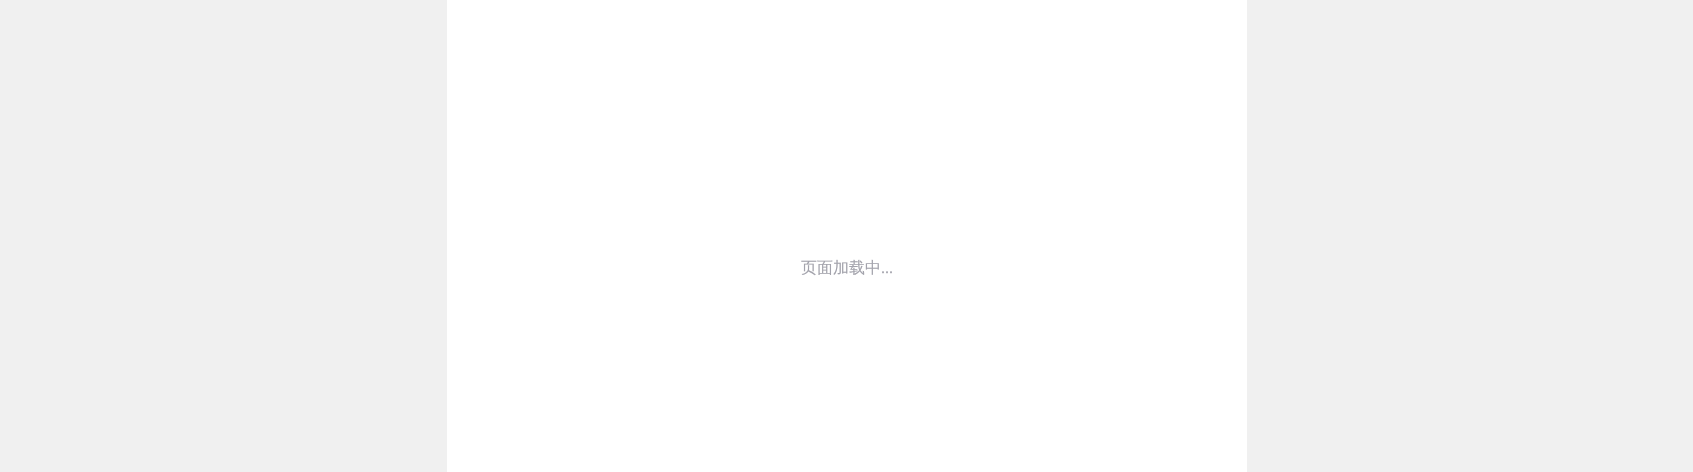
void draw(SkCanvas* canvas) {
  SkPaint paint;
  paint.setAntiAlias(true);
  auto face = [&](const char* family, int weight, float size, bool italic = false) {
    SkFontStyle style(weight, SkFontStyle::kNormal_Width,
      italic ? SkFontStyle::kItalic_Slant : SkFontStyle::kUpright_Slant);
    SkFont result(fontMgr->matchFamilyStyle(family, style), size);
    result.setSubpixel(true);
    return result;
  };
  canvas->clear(0xfff0f0f0);
  paint.setColor(0xffffffff);
  canvas->drawRect(SkRect::MakeXYWH(447, 0, 800, 472), paint);
  auto f0 = face("WenQuanYi Zen Hei", 500, 16);
  paint.setColor(0xffa3a3ac);
  canvas->drawString("页面加载中", 801, 273, f0, paint);
  auto f1 = face("Liberation Serif", 400, 16);
  canvas->drawString("...", 881, 273, f1, paint);
}
